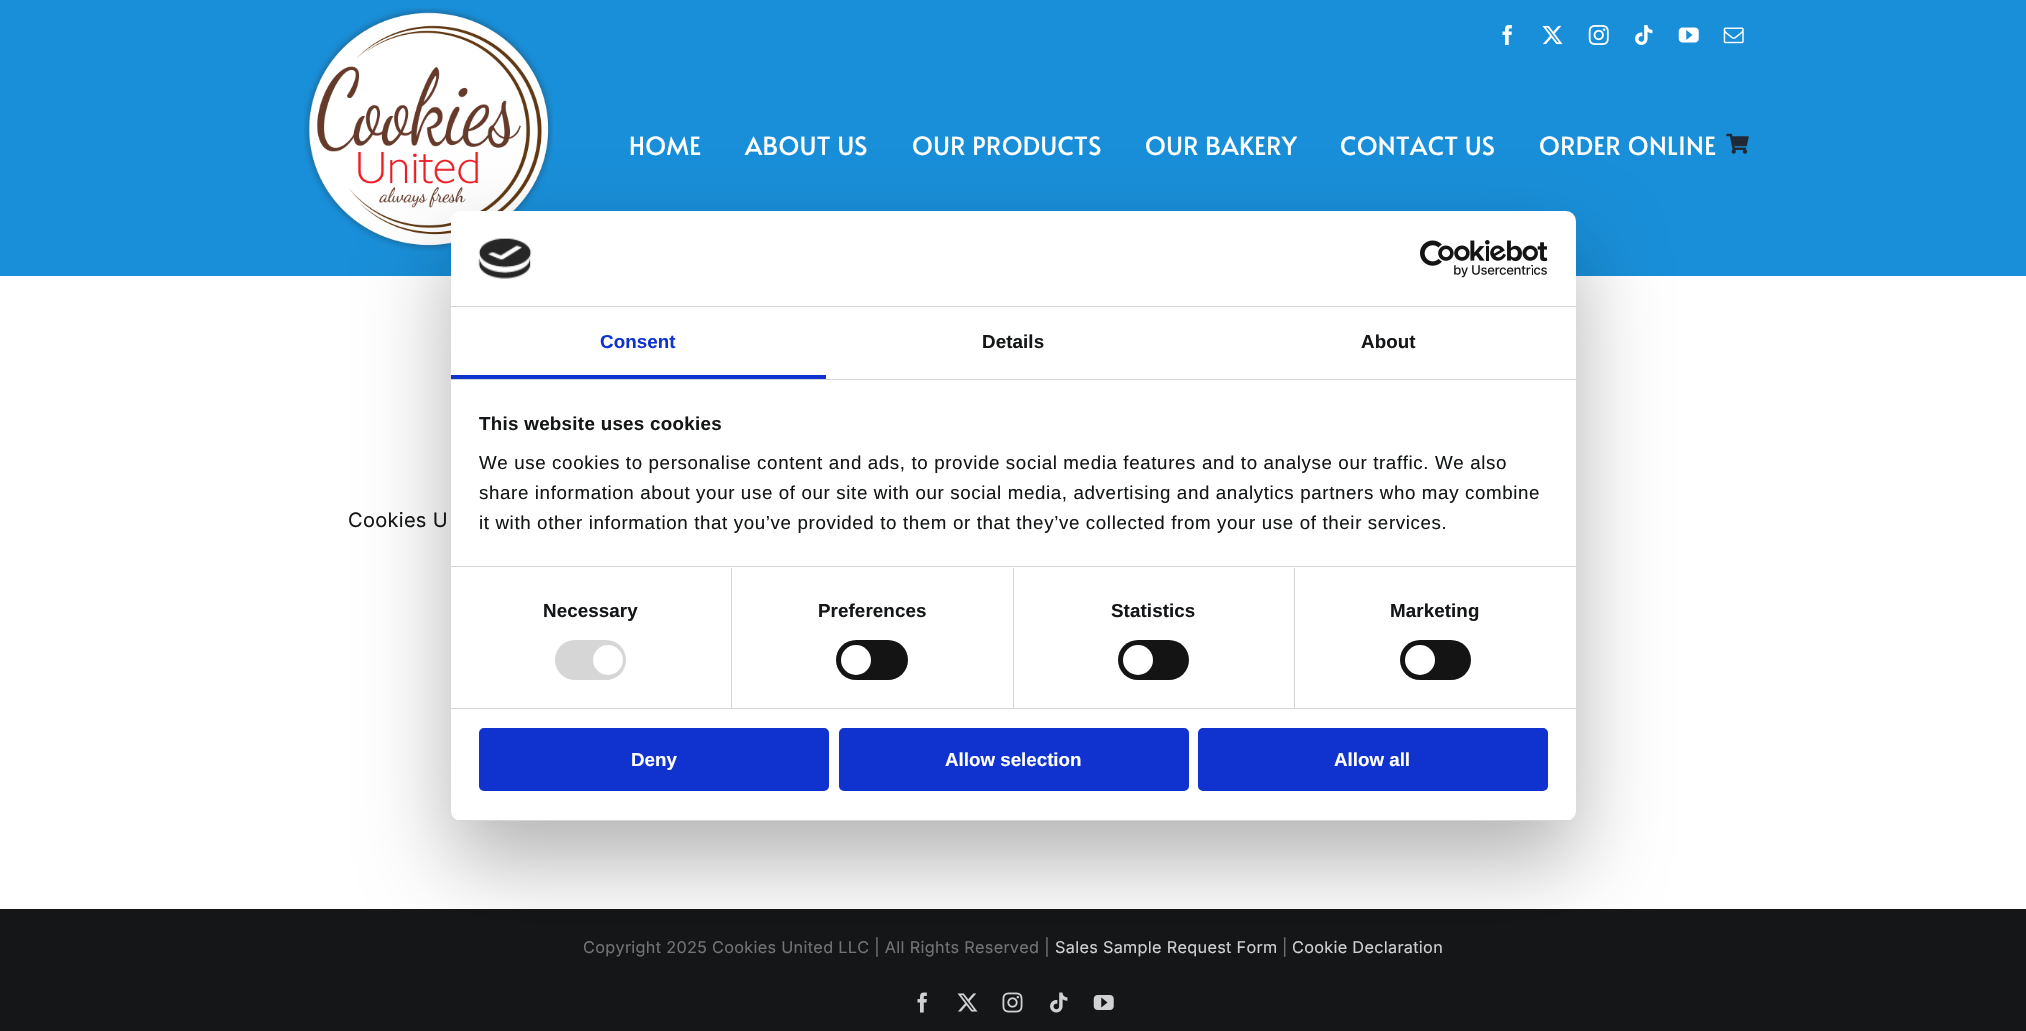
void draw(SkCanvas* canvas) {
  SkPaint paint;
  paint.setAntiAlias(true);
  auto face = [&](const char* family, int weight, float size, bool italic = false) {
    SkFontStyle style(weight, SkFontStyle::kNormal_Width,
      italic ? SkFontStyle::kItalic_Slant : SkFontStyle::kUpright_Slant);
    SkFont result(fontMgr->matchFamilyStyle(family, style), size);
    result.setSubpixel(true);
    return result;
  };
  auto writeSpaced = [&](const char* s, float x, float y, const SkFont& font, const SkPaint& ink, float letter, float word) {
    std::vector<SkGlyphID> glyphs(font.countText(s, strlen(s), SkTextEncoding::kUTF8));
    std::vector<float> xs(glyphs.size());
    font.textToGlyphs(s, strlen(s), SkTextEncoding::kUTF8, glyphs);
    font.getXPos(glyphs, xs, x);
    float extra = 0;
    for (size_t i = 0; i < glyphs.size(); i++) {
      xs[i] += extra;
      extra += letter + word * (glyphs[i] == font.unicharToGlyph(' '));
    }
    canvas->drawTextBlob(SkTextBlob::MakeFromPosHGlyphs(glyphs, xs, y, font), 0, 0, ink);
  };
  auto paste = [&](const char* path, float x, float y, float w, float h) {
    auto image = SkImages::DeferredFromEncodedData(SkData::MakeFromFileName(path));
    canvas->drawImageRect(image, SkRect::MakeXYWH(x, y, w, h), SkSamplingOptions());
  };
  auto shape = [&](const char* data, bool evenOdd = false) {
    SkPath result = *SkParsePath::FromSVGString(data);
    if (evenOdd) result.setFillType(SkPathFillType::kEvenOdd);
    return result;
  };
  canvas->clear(0xffffffff);
  paint.setColor(0xff198fd9);
  canvas->drawRect(SkRect::MakeXYWH(0, 0, 2026, 276), paint);
  paste("img/1.png", 1502, 25, 10, 20);
  paste("img/2.png", 1542, 25, 21, 20);
  paste("img/3.png", 1588, 25, 21, 20);
  paste("img/4.png", 1635, 25, 18, 20);
  paste("img/5.png", 1678, 27, 21, 16);
  paste("img/6.png", 1723, 27, 21, 17);
  paste("img/7.png", 304, 8, 249, 243);
  paste("img/8.png", 1726, 133, 23, 21);
  paint.setColor(0xff141617);
  canvas->drawRect(SkRect::MakeXYWH(0, 909, 2026, 122), paint);
  paste("img/9.png", 917, 992, 10, 21);
  paste("img/10.png", 957, 993, 21, 19);
  paste("img/11.png", 1002, 992, 21, 21);
  paste("img/12.png", 1050, 992, 18, 21);
  paste("img/13.png", 1093, 995, 21, 15);
  paint.setColor(0x4d000000);
  paint.setMaskFilter(SkMaskFilter::MakeBlur(kNormal_SkBlurStyle, 42.5f));
  canvas->drawRoundRect(SkRect::MakeXYWH(451, 251, 1125, 610), 10, 10, paint);
  paint.setMaskFilter(nullptr);
  paint.setColor(0xffffffff);
  canvas->drawRoundRect(SkRect::MakeXYWH(451, 211, 1125, 610), 10, 10, paint);
  paint.setColor(0xffd6d6d6);
  canvas->drawRect(SkRect::MakeXYWH(451, 306, 1125, 1), paint);
  paste("img/14.png", 478, 238, 54, 41);
  paste("img/15.png", 1420, 240, 128, 38);
  {
    const struct { float x, y, w, h; SkColor color; } items[] = {
      {451, 379, 1125, 1, 0xffd6d6d6},
      {451, 375, 375, 4, 0xff1032cf},
      {451, 566, 1125, 1, 0xffd6d6d6},
      {451, 708, 1125, 1, 0xffd6d6d6},
      {731, 568, 1, 140, 0xffd6d6d6},
    };
    for (auto [x, y, w, h, color] : items) {
      paint.setColor(color);
      canvas->drawRect(SkRect::MakeXYWH(x, y, w, h), paint);
    }
  }
  canvas->drawRoundRect(SkRect::MakeXYWH(555, 640, 71, 40), 20, 20, paint);
  paint.setColor(0xffffffff);
  canvas->drawCircle(608, 660, 15, paint);
  paint.setColor(0xffd6d6d6);
  canvas->drawRect(SkRect::MakeXYWH(1013, 568, 1, 140), paint);
  paint.setColor(0xff141414);
  canvas->drawRoundRect(SkRect::MakeXYWH(836, 640, 72, 40), 20, 20, paint);
  paint.setColor(0xffffffff);
  canvas->drawCircle(856, 660, 15, paint);
  paint.setColor(0xffd6d6d6);
  canvas->drawRect(SkRect::MakeXYWH(1294, 568, 1, 140), paint);
  paint.setColor(0xff141414);
  canvas->drawRoundRect(SkRect::MakeXYWH(1118, 640, 71, 40), 20, 20, paint);
  paint.setColor(0xffffffff);
  canvas->drawCircle(1138, 660, 15, paint);
  paint.setColor(0xff141414);
  canvas->drawRoundRect(SkRect::MakeXYWH(1400, 640, 71, 40), 20, 20, paint);
  paint.setColor(0xffffffff);
  canvas->drawCircle(1420, 660, 15, paint);
  canvas->save();
  canvas->clipPath(shape("M461 211H1566C1571.5 211 1576 215.5 1576 221V811C1576 816.5 1571.5 821 1566 821H461C455.5 821 451 816.5 451 811V221C451 215.5 455.5 211 461 211Z"), true);
  paint.setColor(0xffd6d6d6);
  canvas->drawRect(SkRect::MakeXYWH(451, 820, 1125, 1), paint);
  canvas->restore();
  paint.setColor(0xff1032cf);
  canvas->drawRoundRect(SkRect::MakeXYWH(480.5f, 729.5f, 347, 60), 3.5f, 3.5f, paint);
  paint.setStroke(true);
  paint.setStrokeWidth(3);
  canvas->drawRoundRect(SkRect::MakeXYWH(480.5f, 729.5f, 347, 60), 3.5f, 3.5f, paint);
  paint.setStroke(false);
  canvas->drawRoundRect(SkRect::MakeXYWH(840.5f, 729.5f, 347, 60), 3.5f, 3.5f, paint);
  paint.setStroke(true);
  canvas->drawRoundRect(SkRect::MakeXYWH(840.5f, 729.5f, 347, 60), 3.5f, 3.5f, paint);
  paint.setStroke(false);
  canvas->drawRoundRect(SkRect::MakeXYWH(1199.5f, 729.5f, 347, 60), 3.5f, 3.5f, paint);
  paint.setStroke(true);
  canvas->drawRoundRect(SkRect::MakeXYWH(1199.5f, 729.5f, 347, 60), 3.5f, 3.5f, paint);
  auto f0 = face("Alata", 400, 25);
  paint.setStroke(false);
  paint.setColor(0xffffffff);
  {
    const struct { const char* s; float x, y; } items[] = {
      {"HOME", 629, 155},
      {"ABOUT US", 745, 155},
      {"OUR PRODUCTS", 912, 155},
      {"OUR BAKERY", 1145, 155},
      {"CONTACT US", 1340, 155},
      {"ORDER ONLINE", 1539, 155},
    };
    for (auto [s, x, y] : items) {
      writeSpaced(s, x, y, f0, paint, 0.4f, 0);
    }
  }
  auto f1 = face("Inter", 400, 20);
  paint.setColor(0xff141617);
  writeSpaced("Cookies U", 348, 527, f1, paint, 0.3f, 0);
  auto f2 = face("Inter", 400, 16.25f);
  paint.setColor(0xff727374);
  writeSpaced("Copyright 2025 Cookies United LLC | All Rights Reserved |", 583, 953, f2, paint, 0.3f, 0);
  paint.setColor(0xffd0d0d1);
  writeSpaced("Sales Sample Request Form", 1055, 953, f2, paint, 0.3f, 0);
  paint.setColor(0xff727374);
  writeSpaced("|", 1282, 953, f2, paint, 0.3f, 0);
  paint.setColor(0xffd0d0d1);
  writeSpaced("Cookie Declaration", 1292, 953, f2, paint, 0.3f, 0);
  auto f3 = face("Liberation Sans", 700, 18.75f);
  paint.setColor(0xff1032cf);
  writeSpaced("Consent", 600, 348, f3, paint, 0.1f, 0);
  paint.setColor(0xff141617);
  writeSpaced("Details", 982, 348, f3, paint, 0.1f, 0);
  writeSpaced("About", 1361, 348, f3, paint, 0.1f, 0);
  writeSpaced("This website uses cookies", 479, 430, f3, paint, 0.3f, 0);
  auto f4 = face("Liberation Sans", 400, 18.75f);
  {
    const struct { const char* s; float x, y; } items[] = {
      {"We use cookies to personalise content and ads, to provide social media features and to analyse our traffic. We also", 479, 469},
      {"share information about your use of our site with our social media, advertising and analytics partners who may combine", 479, 499},
      {"it with other information that you’ve provided to them or that they’ve collected from your use of their services.", 479, 529},
    };
    for (auto [s, x, y] : items) {
      writeSpaced(s, x, y, f4, paint, 0.62f, 0);
    }
  }
  {
    const struct { const char* s; float x, y; } items[] = {
      {"Necessary", 543, 617},
      {"Preferences", 818, 617},
      {"Statistics", 1111, 617},
      {"Marketing", 1390, 617},
    };
    for (auto [s, x, y] : items) {
      writeSpaced(s, x, y, f3, paint, 0.1f, 0);
    }
  }
  paint.setColor(0xffffffff);
  {
    const struct { const char* s; float x, y; } items[] = {
      {"Deny", 631, 766},
      {"Allow selection", 945, 766},
      {"Allow all", 1334, 766},
    };
    for (auto [s, x, y] : items) {
      canvas->drawString(s, x, y, f3, paint);
    }
  }
}
